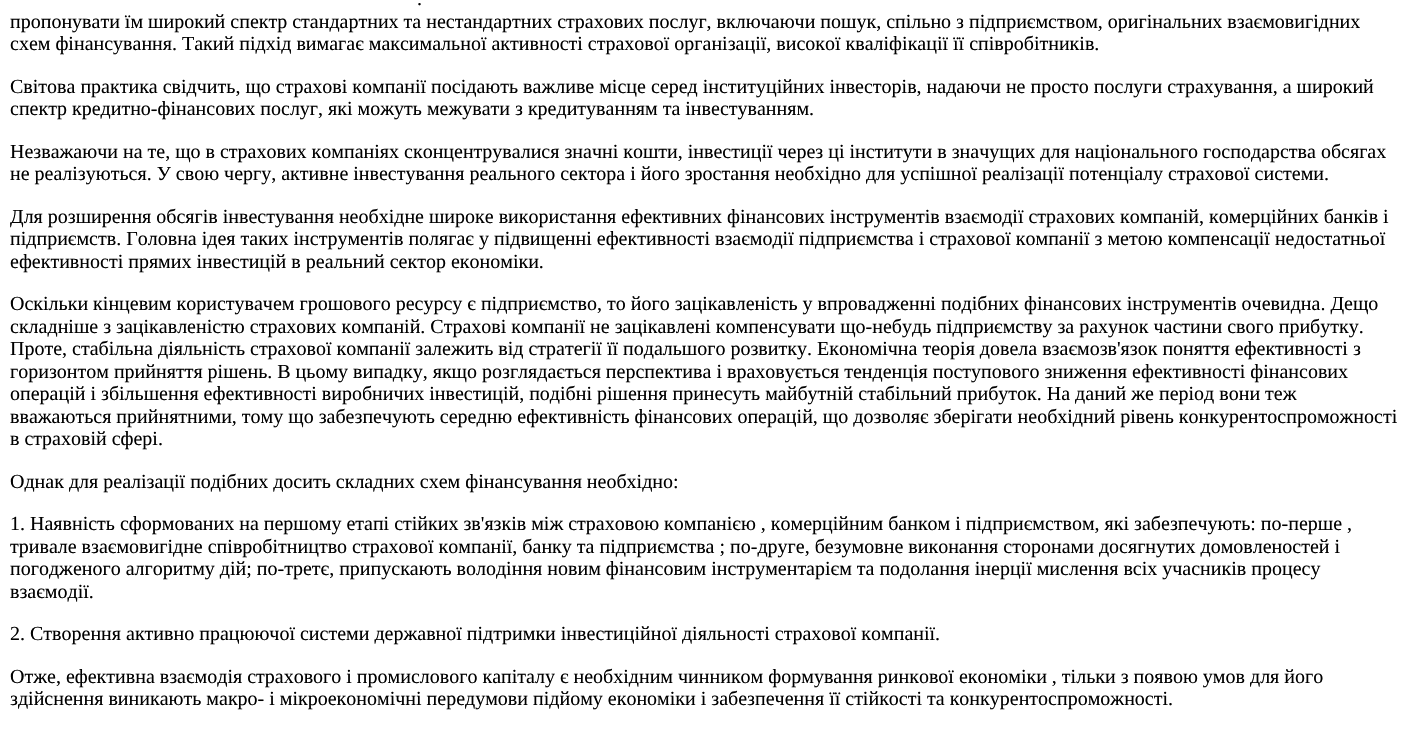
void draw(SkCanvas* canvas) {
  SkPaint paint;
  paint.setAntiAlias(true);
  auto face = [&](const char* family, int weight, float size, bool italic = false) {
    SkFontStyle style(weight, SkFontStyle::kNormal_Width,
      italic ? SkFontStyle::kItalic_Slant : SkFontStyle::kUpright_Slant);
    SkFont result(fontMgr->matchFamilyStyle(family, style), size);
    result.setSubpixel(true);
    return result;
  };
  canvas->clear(0xffffffff);
  auto f0 = face("Liberation Serif", 400, 20);
  paint.setColor(0xff000000);
  {
    const struct { const char* s; float x, y; } items[] = {
      {".", 417, 5},
      {"пропонувати їм широкий спектр стандартних та нестандартних страхових послуг, включаючи пошук, спільно з підприємством, оригінальних взаємовигідних", 10, 28},
      {"схем фінансування. Такий підхід вимагає максимальної активності страхової організації, високої кваліфікації її співробітників.", 10, 50},
      {"Світова практика свідчить, що страхові компанії посідають важливе місце серед інституційних інвесторів, надаючи не просто послуги страхування, а широкий", 10, 93},
      {"спектр кредитно-фінансових послуг, які можуть межувати з кредитуванням та інвестуванням.", 10, 115},
      {"Незважаючи на те, що в страхових компаніях сконцентрувалися значні кошти, інвестиції через ці інститути в значущих для національного господарства обсягах", 10, 158},
      {"не реалізуються. У свою чергу, активне інвестування реального сектора і його зростання необхідно для успішної реалізації потенціалу страхової системи.", 10, 180},
      {"Для розширення обсягів інвестування необхідне широке використання ефективних фінансових інструментів взаємодії страхових компаній, комерційних банків і", 10, 223},
      {"підприємств. Головна ідея таких інструментів полягає у підвищенні ефективності взаємодії підприємства і страхової компанії з метою компенсації недостатньої", 10, 245},
      {"ефективності прямих інвестицій в реальний сектор економіки.", 10, 268},
      {"Оскільки кінцевим користувачем грошового ресурсу є підприємство, то його зацікавленість у впровадженні подібних фінансових інструментів очевидна. Дещо", 10, 310},
      {"складніше з зацікавленістю страхових компаній. Страхові компанії не зацікавлені компенсувати що-небудь підприємству за рахунок частини свого прибутку.", 10, 333},
      {"Проте, стабільна діяльність страхової компанії залежить від стратегії її подальшого розвитку. Економічна теорія довела взаємозв'язок поняття ефективності з", 10, 355},
      {"горизонтом прийняття рішень. В цьому випадку, якщо розглядається перспектива і враховується тенденція поступового зниження ефективності фінансових", 10, 378},
      {"операцій і збільшення ефективності виробничих інвестицій, подібні рішення принесуть майбутній стабільний прибуток. На даний же період вони теж", 10, 400},
      {"вважаються прийнятними, тому що забезпечують середню ефективність фінансових операцій, що дозволяє зберігати необхідний рівень конкурентоспроможності", 10, 423},
      {"в страховій сфері.", 10, 445},
      {"Однак для реалізації подібних досить складних схем фінансування необхідно:", 10, 488},
      {"1. Наявність сформованих на першому етапі стійких зв'язків між страховою компанією , комерційним банком і підприємством, які забезпечують: по-перше ,", 10, 530},
      {"тривале взаємовигідне співробітництво страхової компанії, банку та підприємства ; по-друге, безумовне виконання сторонами досягнутих домовленостей і", 10, 553},
      {"погодженого алгоритму дій; по-третє, припускають володіння новим фінансовим інструментарієм та подолання інерції мислення всіх учасників процесу", 10, 575},
      {"взаємодії.", 10, 598},
      {"2. Створення активно працюючої системи державної підтримки інвестиційної діяльності страхової компанії.", 10, 640},
      {"Отже, ефективна взаємодія страхового і промислового капіталу є необхідним чинником формування ринкової економіки , тільки з появою умов для його", 10, 683},
      {"здійснення виникають макро- і мікроекономічні передумови підйому економіки і забезпечення її стійкості та конкурентоспроможності.", 10, 705},
    };
    for (auto [s, x, y] : items) {
      canvas->drawString(s, x, y, f0, paint);
    }
  }
}
